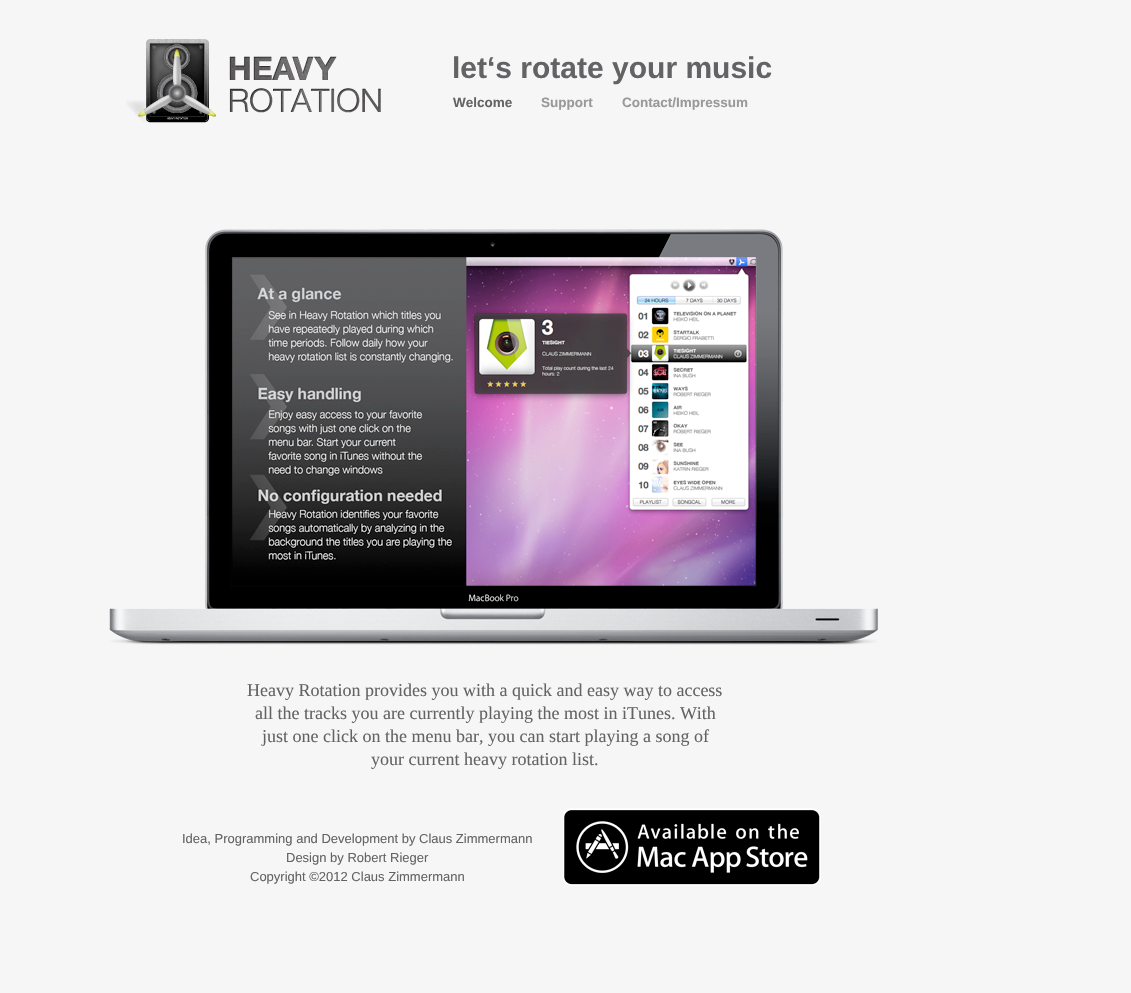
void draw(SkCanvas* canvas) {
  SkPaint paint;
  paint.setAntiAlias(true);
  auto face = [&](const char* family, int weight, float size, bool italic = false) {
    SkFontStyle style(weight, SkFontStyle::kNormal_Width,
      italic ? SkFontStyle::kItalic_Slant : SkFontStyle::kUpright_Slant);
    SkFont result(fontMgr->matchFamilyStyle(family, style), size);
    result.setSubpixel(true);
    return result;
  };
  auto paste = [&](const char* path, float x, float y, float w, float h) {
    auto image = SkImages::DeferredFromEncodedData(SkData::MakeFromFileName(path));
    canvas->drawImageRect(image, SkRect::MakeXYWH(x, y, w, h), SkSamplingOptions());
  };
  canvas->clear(0xfff7f6f6);
  paste("img/1.png", 126, 39, 255, 84);
  paste("img/2.png", 109, 229, 769, 416);
  paste("img/3.png", 563, 808, 258, 78);
  auto f0 = face("Liberation Sans", 700, 30);
  paint.setColor(0xff636366);
  canvas->drawString("let‘s rotate your music", 452, 78, f0, paint);
  auto f1 = face("Liberation Sans", 700, 13.5f);
  canvas->drawString("Welcome", 453, 107, f1, paint);
  paint.setColor(0xff999999);
  canvas->drawString("Support", 541, 107, f1, paint);
  canvas->drawString("Contact/Impressum", 622, 107, f1, paint);
  auto f2 = face("Liberation Serif", 400, 18);
  paint.setColor(0xff636366);
  {
    const struct { const char* s; float x, y; } items[] = {
      {"Heavy Rotation provides you with a quick and easy way to access", 247, 696},
      {"all the tracks you are currently playing the most in iTunes. With", 255, 719},
      {"just one click on the menu bar, you can start playing a song of", 262, 742},
      {"your current heavy rotation list.", 371, 765},
    };
    for (auto [s, x, y] : items) {
      canvas->drawString(s, x, y, f2, paint);
    }
  }
  auto f3 = face("Liberation Sans", 400, 13);
  {
    const struct { const char* s; float x, y; } items[] = {
      {"Idea, Programming and Development by Claus Zimmermann", 182, 843},
      {"Design by Robert Rieger", 286, 862},
      {"Copyright ©2012 Claus Zimmermann", 250, 881},
    };
    for (auto [s, x, y] : items) {
      canvas->drawString(s, x, y, f3, paint);
    }
  }
}
